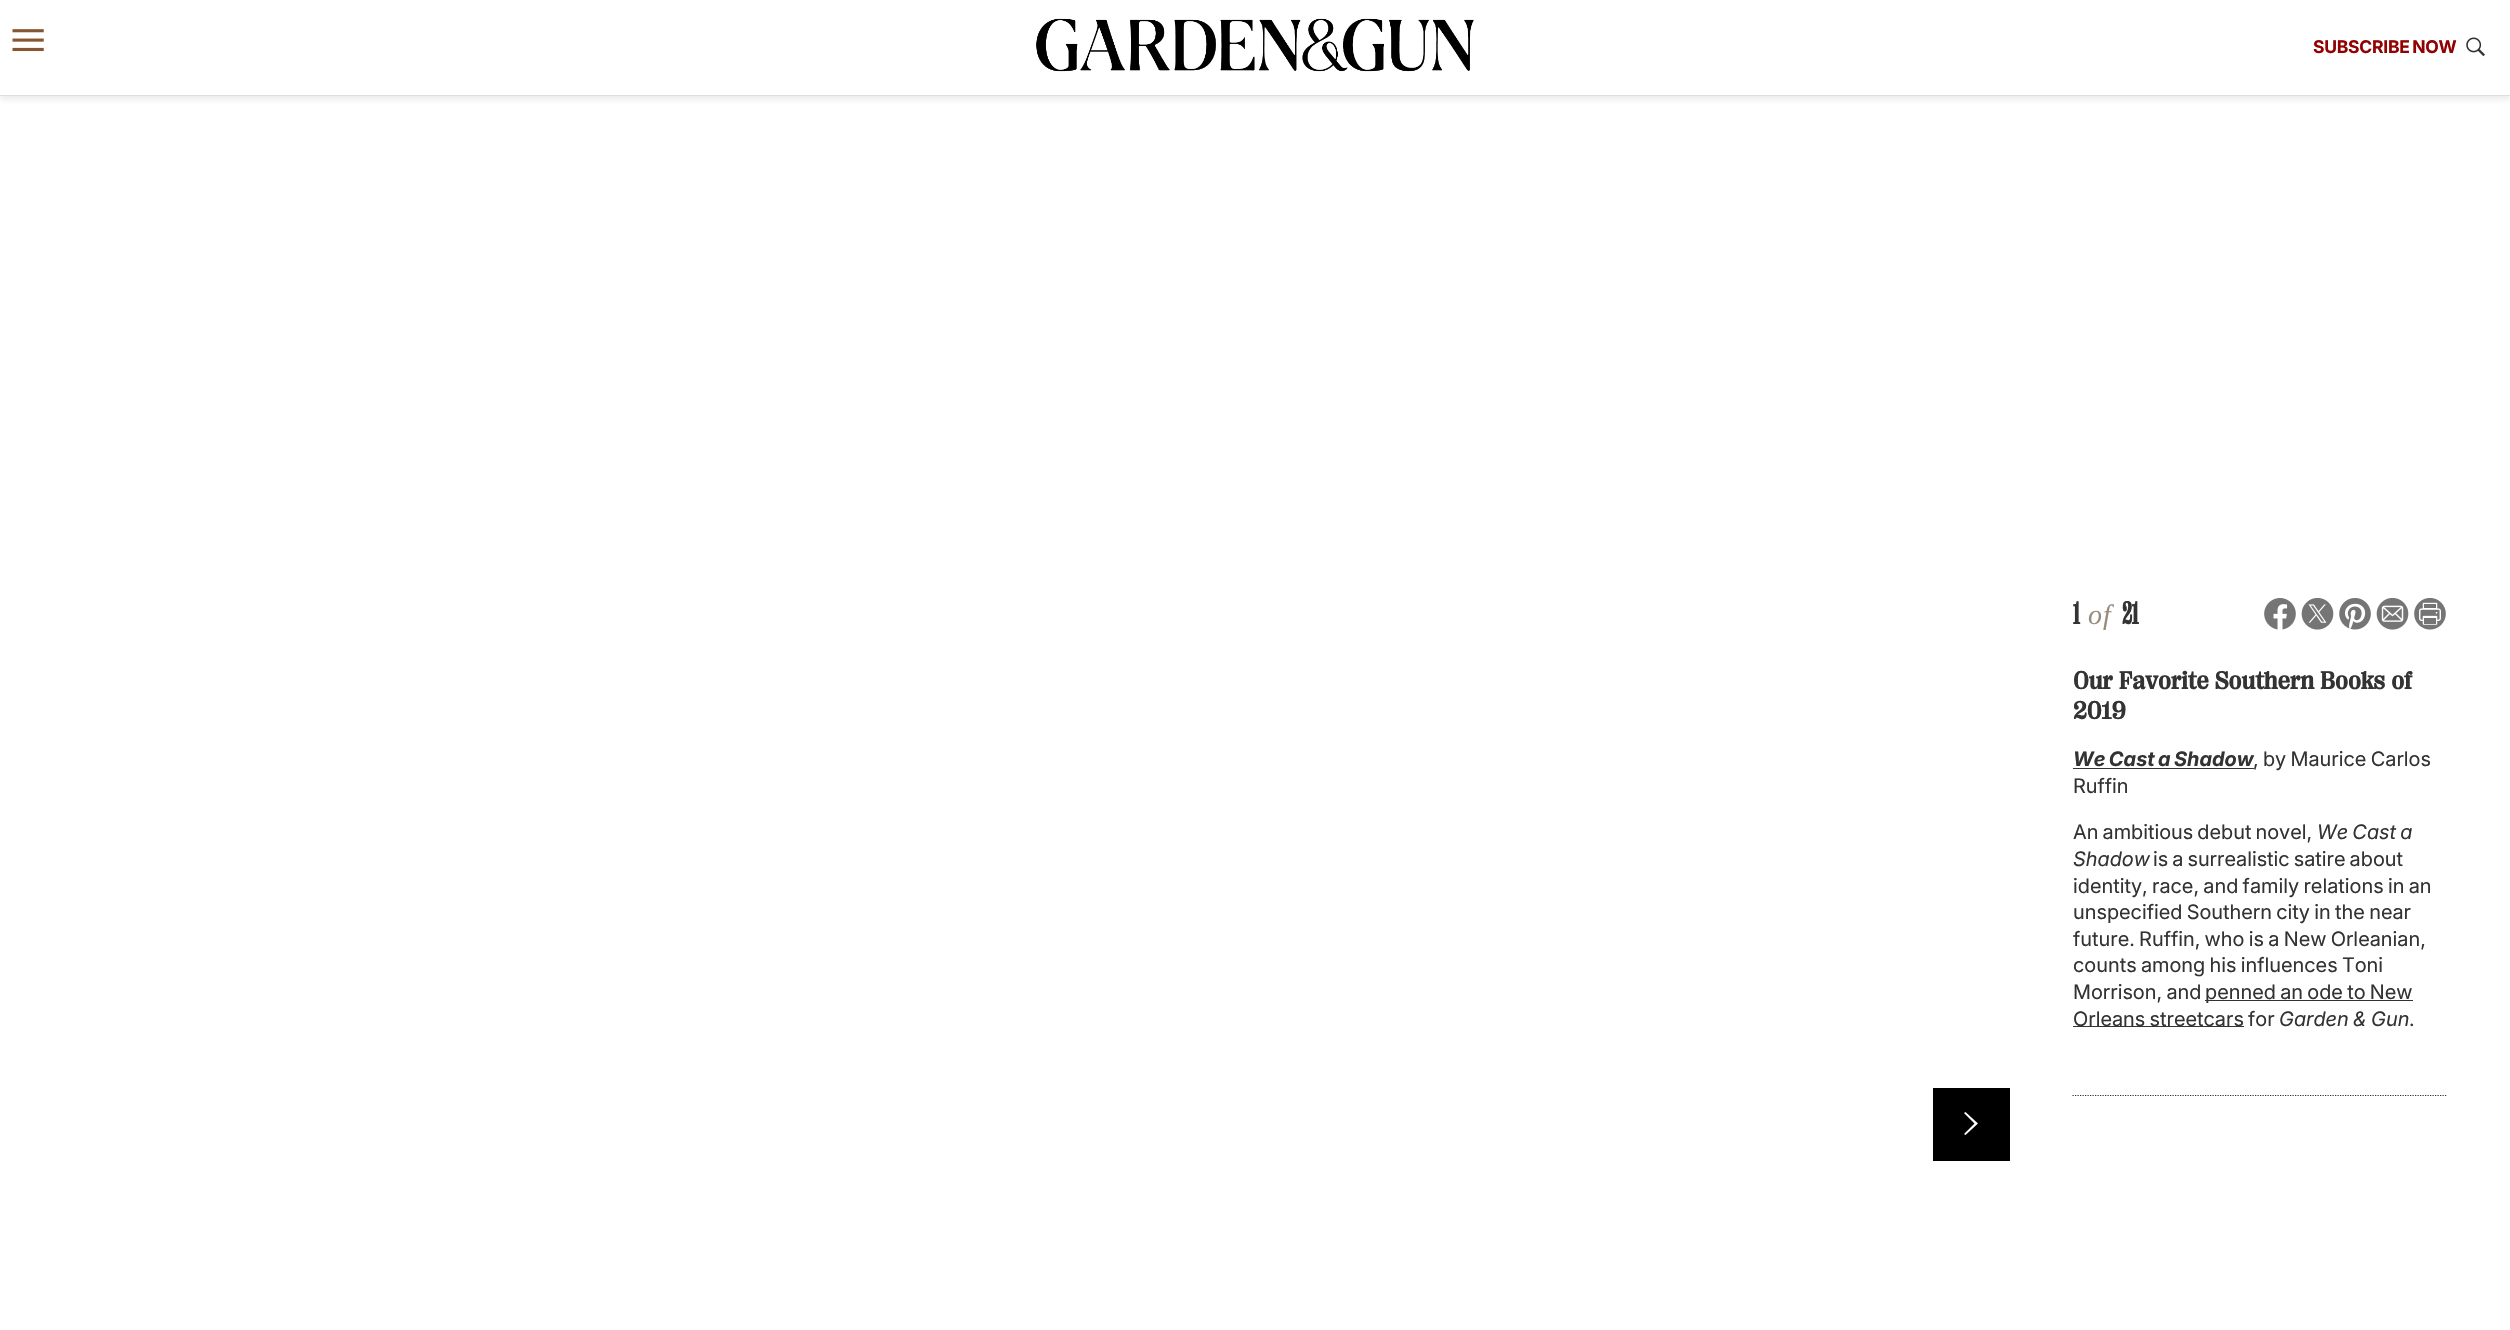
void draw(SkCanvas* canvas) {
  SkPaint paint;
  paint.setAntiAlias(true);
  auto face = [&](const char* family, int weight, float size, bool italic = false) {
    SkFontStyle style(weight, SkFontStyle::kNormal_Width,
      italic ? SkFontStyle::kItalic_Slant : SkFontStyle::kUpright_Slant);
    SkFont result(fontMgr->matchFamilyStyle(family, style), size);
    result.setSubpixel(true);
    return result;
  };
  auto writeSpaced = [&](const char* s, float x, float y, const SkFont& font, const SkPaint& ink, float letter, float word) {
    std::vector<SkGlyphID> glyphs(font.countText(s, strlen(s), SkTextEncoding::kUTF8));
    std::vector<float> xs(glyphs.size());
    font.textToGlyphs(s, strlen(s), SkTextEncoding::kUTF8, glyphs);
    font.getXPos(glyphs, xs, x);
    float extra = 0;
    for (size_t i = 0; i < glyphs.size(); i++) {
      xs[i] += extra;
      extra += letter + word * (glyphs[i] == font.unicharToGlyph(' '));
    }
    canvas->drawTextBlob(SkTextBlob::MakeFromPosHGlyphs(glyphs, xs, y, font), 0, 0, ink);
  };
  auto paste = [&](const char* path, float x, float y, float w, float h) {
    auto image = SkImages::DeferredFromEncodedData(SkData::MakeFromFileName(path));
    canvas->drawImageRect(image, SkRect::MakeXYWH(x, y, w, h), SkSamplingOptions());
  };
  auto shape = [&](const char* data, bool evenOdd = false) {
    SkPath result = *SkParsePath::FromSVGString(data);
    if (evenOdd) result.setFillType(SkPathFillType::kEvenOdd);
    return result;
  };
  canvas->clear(0xffffffff);
  canvas->save();
  canvas->clipRect(SkRect::MakeXYWH(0, 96, 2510, 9));
  paint.setColor(0x99dfdfdf);
  paint.setMaskFilter(SkMaskFilter::MakeBlur(kNormal_SkBlurStyle, 3));
  canvas->drawRect(SkRect::MakeXYWH(0, 4, 2510, 96), paint);
  paint.setMaskFilter(nullptr);
  canvas->restore();
  paint.setColor(0xffdfdfdf);
  canvas->drawRect(SkRect::MakeXYWH(0, 95, 2510, 1), paint);
  paste("img/1.png", 12, 29, 32, 23);
  paste("img/2.png", 1036, 18, 438, 54);
  paste("img/3.png", 2466, 37, 19, 20);
  paste("img/4.png", 2264, 598, 32, 32);
  paste("img/5.png", 2301, 598, 33, 32);
  paste("img/6.png", 2339, 598, 32, 32);
  paste("img/7.png", 2376, 598, 33, 32);
  paste("img/8.png", 2414, 598, 32, 32);
  {
    const struct { float x, y, w, h; SkColor color; } items[] = {
      {2073, 768, 181, 1, 0xff333333},
      {2205, 1000, 208, 1, 0xff333333},
      {2073, 1026, 171, 1, 0xff333333},
    };
    for (auto [x, y, w, h, color] : items) {
      paint.setColor(color);
      canvas->drawRect(SkRect::MakeXYWH(x, y, w, h), paint);
    }
  }
  paint.setStroke(true);
  paint.setStrokeWidth(1.2f);
  paint.setPathEffect(SkDashPathEffect::Make({{1.25f, 1.25f}}, 0));
  canvas->drawPath(shape("M2072.5 1095.5H2447.5"), paint);
  paint.setPathEffect(nullptr);
  paint.setStroke(false);
  paint.setColor(0xff000000);
  canvas->drawRect(SkRect::MakeXYWH(1933, 1088, 77, 73), paint);
  paint.setColor(0xffffffff);
  canvas->drawPath(shape("M1964 1113L1965.5 1112L1978 1123.5L1965.5 1135L1964 1134L1974.5 1123.5Z"), paint);
  auto f0 = face("Inter", 700, 17.5f);
  paint.setColor(0xff920202);
  writeSpaced("SUBSCRIBE NOW", 2313, 53, f0, paint, -0.25f, -1.25f);
  auto f1 = face("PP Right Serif", 700, 32);
  paint.setColor(0xff333333);
  canvas->drawString("1", 2073, 624, f1, paint);
  auto f2 = face("Liberation Serif", 400, 28, true);
  paint.setColor(0xff998b7d);
  writeSpaced("of", 2088, 624, f2, paint, 1, 0);
  paint.setColor(0xff333333);
  canvas->drawString("21", 2122, 624, f1, paint);
  auto f3 = face("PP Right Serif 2", 700, 25);
  canvas->drawString("Our Favorite Southern Books of", 2073, 689, f3, paint);
  canvas->drawString("2019", 2073, 719, f3, paint);
  auto f4 = face("Inter", 700, 20, true);
  writeSpaced("We Cast a Shadow", 2073, 766, f4, paint, 0, -1.25f);
  auto f5 = face("Inter", 400, 20);
  writeSpaced(", by Maurice Carlos", 2253, 766, f5, paint, 0, -1.25f);
  canvas->drawString("Ruffin", 2073, 793, f5, paint);
  writeSpaced("An ambitious debut novel,", 2073, 839, f5, paint, 0, -1.5f);
  auto f6 = face("Inter", 400, 20, true);
  writeSpaced("We Cast a", 2317, 839, f6, paint, 0, -1.25f);
  canvas->drawString("Shadow", 2073, 866, f6, paint);
  writeSpaced("is a surrealistic satire about", 2153, 866, f5, paint, 0, -1.5f);
  {
    const struct { const char* s; float x, y; } items[] = {
      {"identity, race, and family relations in an", 2073, 893},
      {"unspecified Southern city in the near", 2073, 919},
      {"future. Ruffin, who is a New Orleanian,", 2073, 946},
      {"counts among his influences Toni", 2073, 972},
      {"Morrison, and", 2073, 999},
      {"penned an ode to New", 2205, 999},
      {"Orleans streetcars", 2073, 1026},
    };
    for (auto [s, x, y] : items) {
      writeSpaced(s, x, y, f5, paint, 0, -1.25f);
    }
  }
  canvas->drawString("for", 2248, 1026, f5, paint);
  writeSpaced("Garden & Gun", 2279, 1026, f6, paint, 0, -1.25f);
  canvas->drawString(".", 2409, 1026, f5, paint);
}
